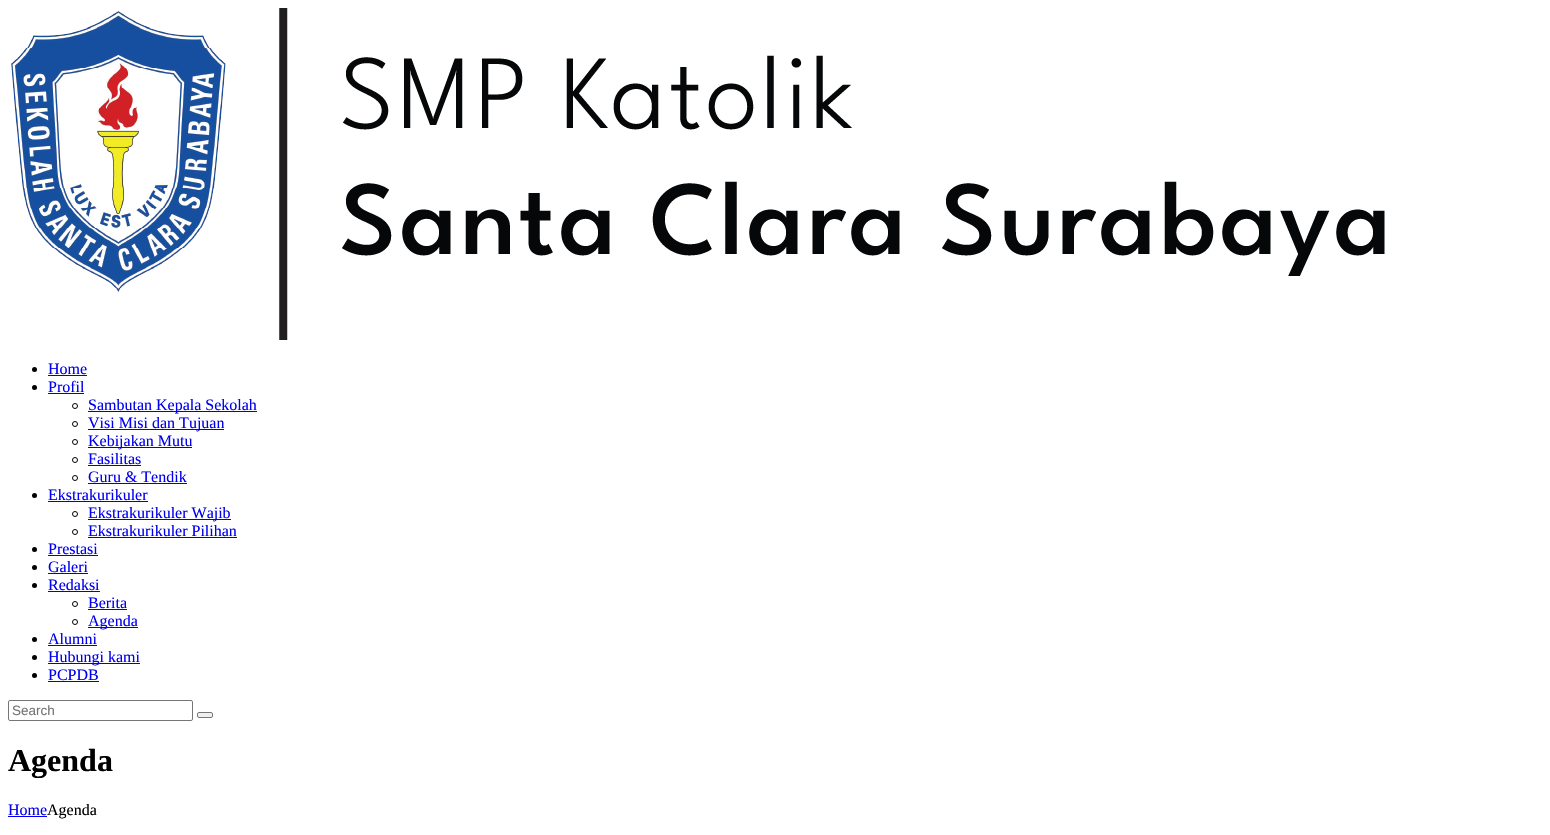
void draw(SkCanvas* canvas) {
  SkPaint paint;
  paint.setAntiAlias(true);
  auto face = [&](const char* family, int weight, float size, bool italic = false) {
    SkFontStyle style(weight, SkFontStyle::kNormal_Width,
      italic ? SkFontStyle::kItalic_Slant : SkFontStyle::kUpright_Slant);
    SkFont result(fontMgr->matchFamilyStyle(family, style), size);
    result.setSubpixel(true);
    return result;
  };
  auto paste = [&](const char* path, float x, float y, float w, float h) {
    auto image = SkImages::DeferredFromEncodedData(SkData::MakeFromFileName(path));
    canvas->drawImageRect(image, SkRect::MakeXYWH(x, y, w, h), SkSamplingOptions());
  };
  canvas->clear(0xffffffff);
  paste("img/1.png", 11, 8, 1374, 332);
  paint.setColor(0xff000000);
  canvas->drawCircle(34.5f, 369.5f, 2.5f, paint);
  paint.setColor(0xff0000ee);
  canvas->drawRect(SkRect::MakeXYWH(48, 375, 39, 1), paint);
  paint.setColor(0xff000000);
  canvas->drawCircle(34.5f, 387.5f, 2.5f, paint);
  paint.setColor(0xff0000ee);
  canvas->drawRect(SkRect::MakeXYWH(48, 393, 36, 1), paint);
  paint.setStroke(true);
  paint.setStrokeWidth(1);
  paint.setColor(0xff000000);
  canvas->drawCircle(75, 406, 2.5f, paint);
  paint.setStroke(false);
  paint.setColor(0xff0000ee);
  canvas->drawRect(SkRect::MakeXYWH(88, 411, 169, 1), paint);
  paint.setStroke(true);
  paint.setColor(0xff000000);
  canvas->drawCircle(75, 424, 2.5f, paint);
  paint.setStroke(false);
  paint.setColor(0xff0000ee);
  canvas->drawRect(SkRect::MakeXYWH(88, 429, 136, 1), paint);
  paint.setStroke(true);
  paint.setColor(0xff000000);
  canvas->drawCircle(75, 442, 2.5f, paint);
  paint.setStroke(false);
  paint.setColor(0xff0000ee);
  canvas->drawRect(SkRect::MakeXYWH(88, 447, 104, 1), paint);
  paint.setStroke(true);
  paint.setColor(0xff000000);
  canvas->drawCircle(75, 460, 2.5f, paint);
  paint.setStroke(false);
  paint.setColor(0xff0000ee);
  canvas->drawRect(SkRect::MakeXYWH(88, 465, 53, 1), paint);
  paint.setStroke(true);
  paint.setColor(0xff000000);
  canvas->drawCircle(75, 478, 2.5f, paint);
  paint.setStroke(false);
  paint.setColor(0xff0000ee);
  canvas->drawRect(SkRect::MakeXYWH(88, 483, 99, 1), paint);
  paint.setColor(0xff000000);
  canvas->drawCircle(34.5f, 495.5f, 2.5f, paint);
  paint.setColor(0xff0000ee);
  canvas->drawRect(SkRect::MakeXYWH(48, 501, 100, 1), paint);
  paint.setStroke(true);
  paint.setColor(0xff000000);
  canvas->drawCircle(75, 514, 2.5f, paint);
  paint.setStroke(false);
  paint.setColor(0xff0000ee);
  canvas->drawRect(SkRect::MakeXYWH(88, 519, 143, 1), paint);
  paint.setStroke(true);
  paint.setColor(0xff000000);
  canvas->drawCircle(75, 532, 2.5f, paint);
  paint.setStroke(false);
  paint.setColor(0xff0000ee);
  canvas->drawRect(SkRect::MakeXYWH(88, 537, 149, 1), paint);
  paint.setColor(0xff000000);
  canvas->drawCircle(34.5f, 549.5f, 2.5f, paint);
  paint.setColor(0xff0000ee);
  canvas->drawRect(SkRect::MakeXYWH(48, 555, 50, 1), paint);
  paint.setColor(0xff000000);
  canvas->drawCircle(34.5f, 567.5f, 2.5f, paint);
  paint.setColor(0xff0000ee);
  canvas->drawRect(SkRect::MakeXYWH(48, 573, 40, 1), paint);
  paint.setColor(0xff000000);
  canvas->drawCircle(34.5f, 585.5f, 2.5f, paint);
  paint.setColor(0xff0000ee);
  canvas->drawRect(SkRect::MakeXYWH(48, 591, 52, 1), paint);
  paint.setStroke(true);
  paint.setColor(0xff000000);
  canvas->drawCircle(75, 604, 2.5f, paint);
  paint.setStroke(false);
  paint.setColor(0xff0000ee);
  canvas->drawRect(SkRect::MakeXYWH(88, 609, 39, 1), paint);
  paint.setStroke(true);
  paint.setColor(0xff000000);
  canvas->drawCircle(75, 622, 2.5f, paint);
  paint.setStroke(false);
  paint.setColor(0xff0000ee);
  canvas->drawRect(SkRect::MakeXYWH(88, 627, 50, 1), paint);
  paint.setColor(0xff000000);
  canvas->drawCircle(34.5f, 639.5f, 2.5f, paint);
  paint.setColor(0xff0000ee);
  canvas->drawRect(SkRect::MakeXYWH(48, 645, 49, 1), paint);
  paint.setColor(0xff000000);
  canvas->drawCircle(34.5f, 657.5f, 2.5f, paint);
  paint.setColor(0xff0000ee);
  canvas->drawRect(SkRect::MakeXYWH(48, 663, 92, 1), paint);
  paint.setColor(0xff000000);
  canvas->drawCircle(34.5f, 675.5f, 2.5f, paint);
  paint.setColor(0xff0000ee);
  canvas->drawRect(SkRect::MakeXYWH(48, 681, 51, 1), paint);
  paint.setStroke(true);
  paint.setColor(0xff767676);
  canvas->drawRoundRect(SkRect::MakeXYWH(8.5f, 700.5f, 184, 20), 1.5f, 1.5f, paint);
  paint.setStroke(false);
  paint.setColor(0xffefefef);
  canvas->drawRoundRect(SkRect::MakeXYWH(197.5f, 712.5f, 15, 5), 1.5f, 1.5f, paint);
  paint.setStroke(true);
  paint.setColor(0xff767676);
  canvas->drawRoundRect(SkRect::MakeXYWH(197.5f, 712.5f, 15, 5), 1.5f, 1.5f, paint);
  paint.setStroke(false);
  paint.setColor(0xff0000ee);
  canvas->drawRect(SkRect::MakeXYWH(8, 816, 39, 1), paint);
  auto f0 = face("Liberation Serif", 400, 16);
  {
    const struct { const char* s; float x, y; } items[] = {
      {"Home", 48, 374},
      {"Profil", 48, 392},
      {"Sambutan Kepala Sekolah", 88, 410},
      {"Visi Misi dan Tujuan", 88, 428},
      {"Kebijakan Mutu", 88, 446},
      {"Fasilitas", 88, 464},
      {"Guru & Tendik", 88, 482},
      {"Ekstrakurikuler", 48, 500},
      {"Ekstrakurikuler Wajib", 88, 518},
      {"Ekstrakurikuler Pilihan", 88, 536},
      {"Prestasi", 48, 554},
      {"Galeri", 48, 572},
      {"Redaksi", 48, 590},
      {"Berita", 88, 608},
      {"Agenda", 88, 626},
      {"Alumni", 48, 644},
      {"Hubungi kami", 48, 662},
      {"PCPDB", 48, 680},
    };
    for (auto [s, x, y] : items) {
      canvas->drawString(s, x, y, f0, paint);
    }
  }
  auto f1 = face("Liberation Sans", 400, 13.5f);
  paint.setColor(0xff757575);
  canvas->drawString("Search", 12, 715, f1, paint);
  auto f2 = face("Liberation Serif", 700, 32);
  paint.setColor(0xff000000);
  canvas->drawString("Agenda", 8, 771, f2, paint);
  paint.setColor(0xff0000ee);
  canvas->drawString("Home", 8, 815, f0, paint);
  paint.setColor(0xff000000);
  canvas->drawString("Agenda", 47, 815, f0, paint);
}
